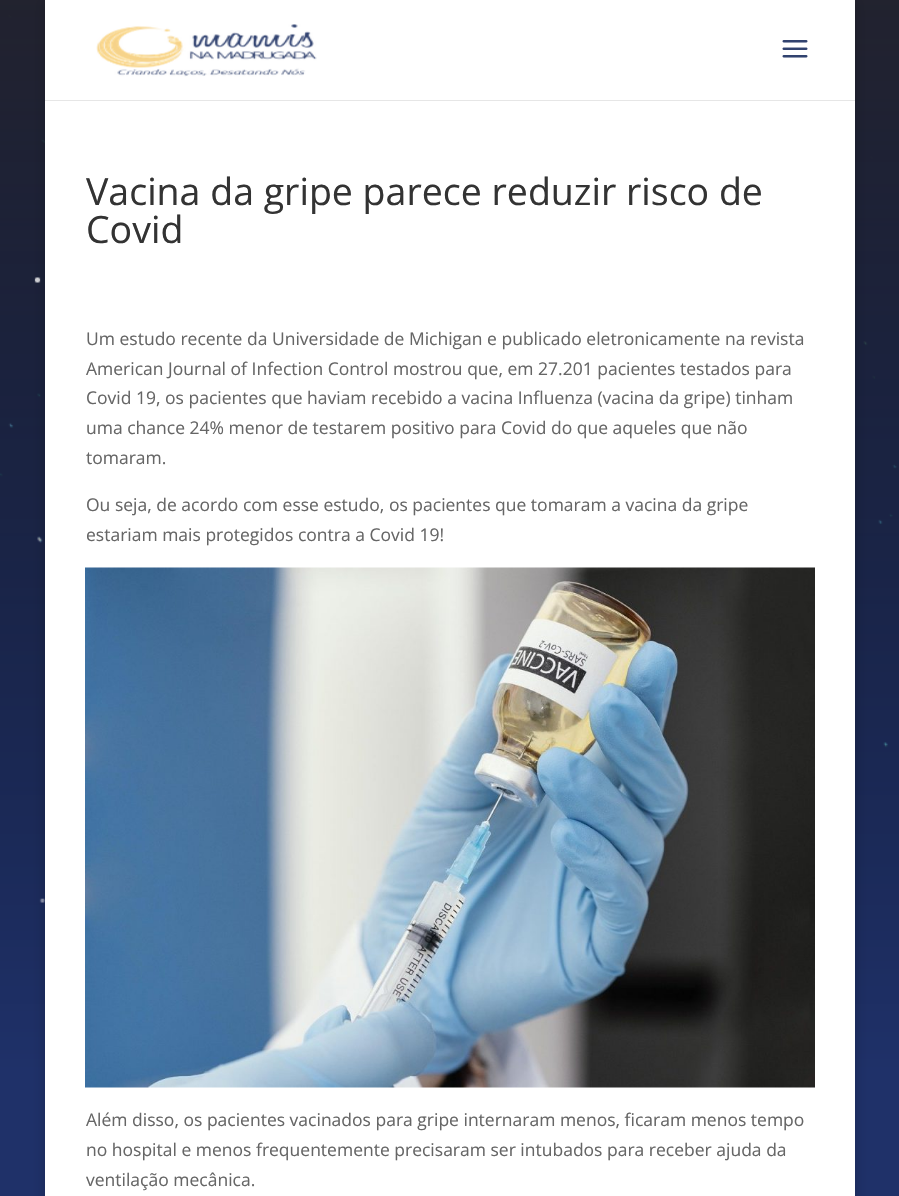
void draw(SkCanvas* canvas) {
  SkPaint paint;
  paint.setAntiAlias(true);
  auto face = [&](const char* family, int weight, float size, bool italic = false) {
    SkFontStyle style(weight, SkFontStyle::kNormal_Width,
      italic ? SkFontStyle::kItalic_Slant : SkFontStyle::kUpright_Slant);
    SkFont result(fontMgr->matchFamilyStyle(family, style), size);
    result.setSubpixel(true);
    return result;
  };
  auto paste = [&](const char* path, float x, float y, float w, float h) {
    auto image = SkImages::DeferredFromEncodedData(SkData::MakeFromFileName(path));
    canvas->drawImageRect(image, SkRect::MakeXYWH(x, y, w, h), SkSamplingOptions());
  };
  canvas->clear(0xffffffff);
  paste("img/1.png", 0, 0, 899, 1196);
  paint.setColor(0x33000000);
  paint.setMaskFilter(SkMaskFilter::MakeBlur(kNormal_SkBlurStyle, 6));
  canvas->drawRect(SkRect::MakeXYWH(45, 0, 810, 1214), paint);
  paint.setMaskFilter(nullptr);
  paint.setColor(0xffe6e6e6);
  canvas->drawRect(SkRect::MakeXYWH(45, 100, 810, 1), paint);
  paint.setColor(0xffffffff);
  canvas->drawRect(SkRect::MakeXYWH(45, 0, 810, 100), paint);
  paste("img/2.png", 96, 24, 221, 53);
  paste("img/3.png", 782, 40, 26, 18);
  canvas->drawRect(SkRect::MakeXYWH(45, 101, 810, 1095), paint);
  paste("img/4.png", 85, 567, 730, 521);
  auto f0 = face("Open Sans", 400, 37.5f);
  paint.setColor(0xff333333);
  canvas->drawString("Vacina da gripe parece reduzir risco de", 86, 205, f0, paint);
  canvas->drawString("Covid", 86, 243, f0, paint);
  auto f1 = face("Open Sans", 400, 17.5f);
  paint.setColor(0xff666666);
  {
    const struct { const char* s; float x, y; } items[] = {
      {"Um estudo recente da Universidade de Michigan e publicado eletronicamente na revista", 86, 345},
      {"American Journal of Infection Control mostrou que, em 27.201 pacientes testados para", 86, 375},
      {"Covid 19, os pacientes que haviam recebido a vacina Influenza (vacina da gripe) tinham", 86, 404},
      {"uma chance 24% menor de testarem positivo para Covid do que aqueles que não", 86, 434},
      {"tomaram.", 86, 464},
      {"Ou seja, de acordo com esse estudo, os pacientes que tomaram a vacina da gripe", 86, 511},
      {"estariam mais protegidos contra a Covid 19!", 86, 541},
      {"Além disso, os pacientes vacinados para gripe internaram menos, ficaram menos tempo", 86, 1126},
      {"no hospital e menos frequentemente precisaram ser intubados para receber ajuda da", 86, 1156},
      {"ventilação mecânica.", 86, 1186},
    };
    for (auto [s, x, y] : items) {
      canvas->drawString(s, x, y, f1, paint);
    }
  }
}
